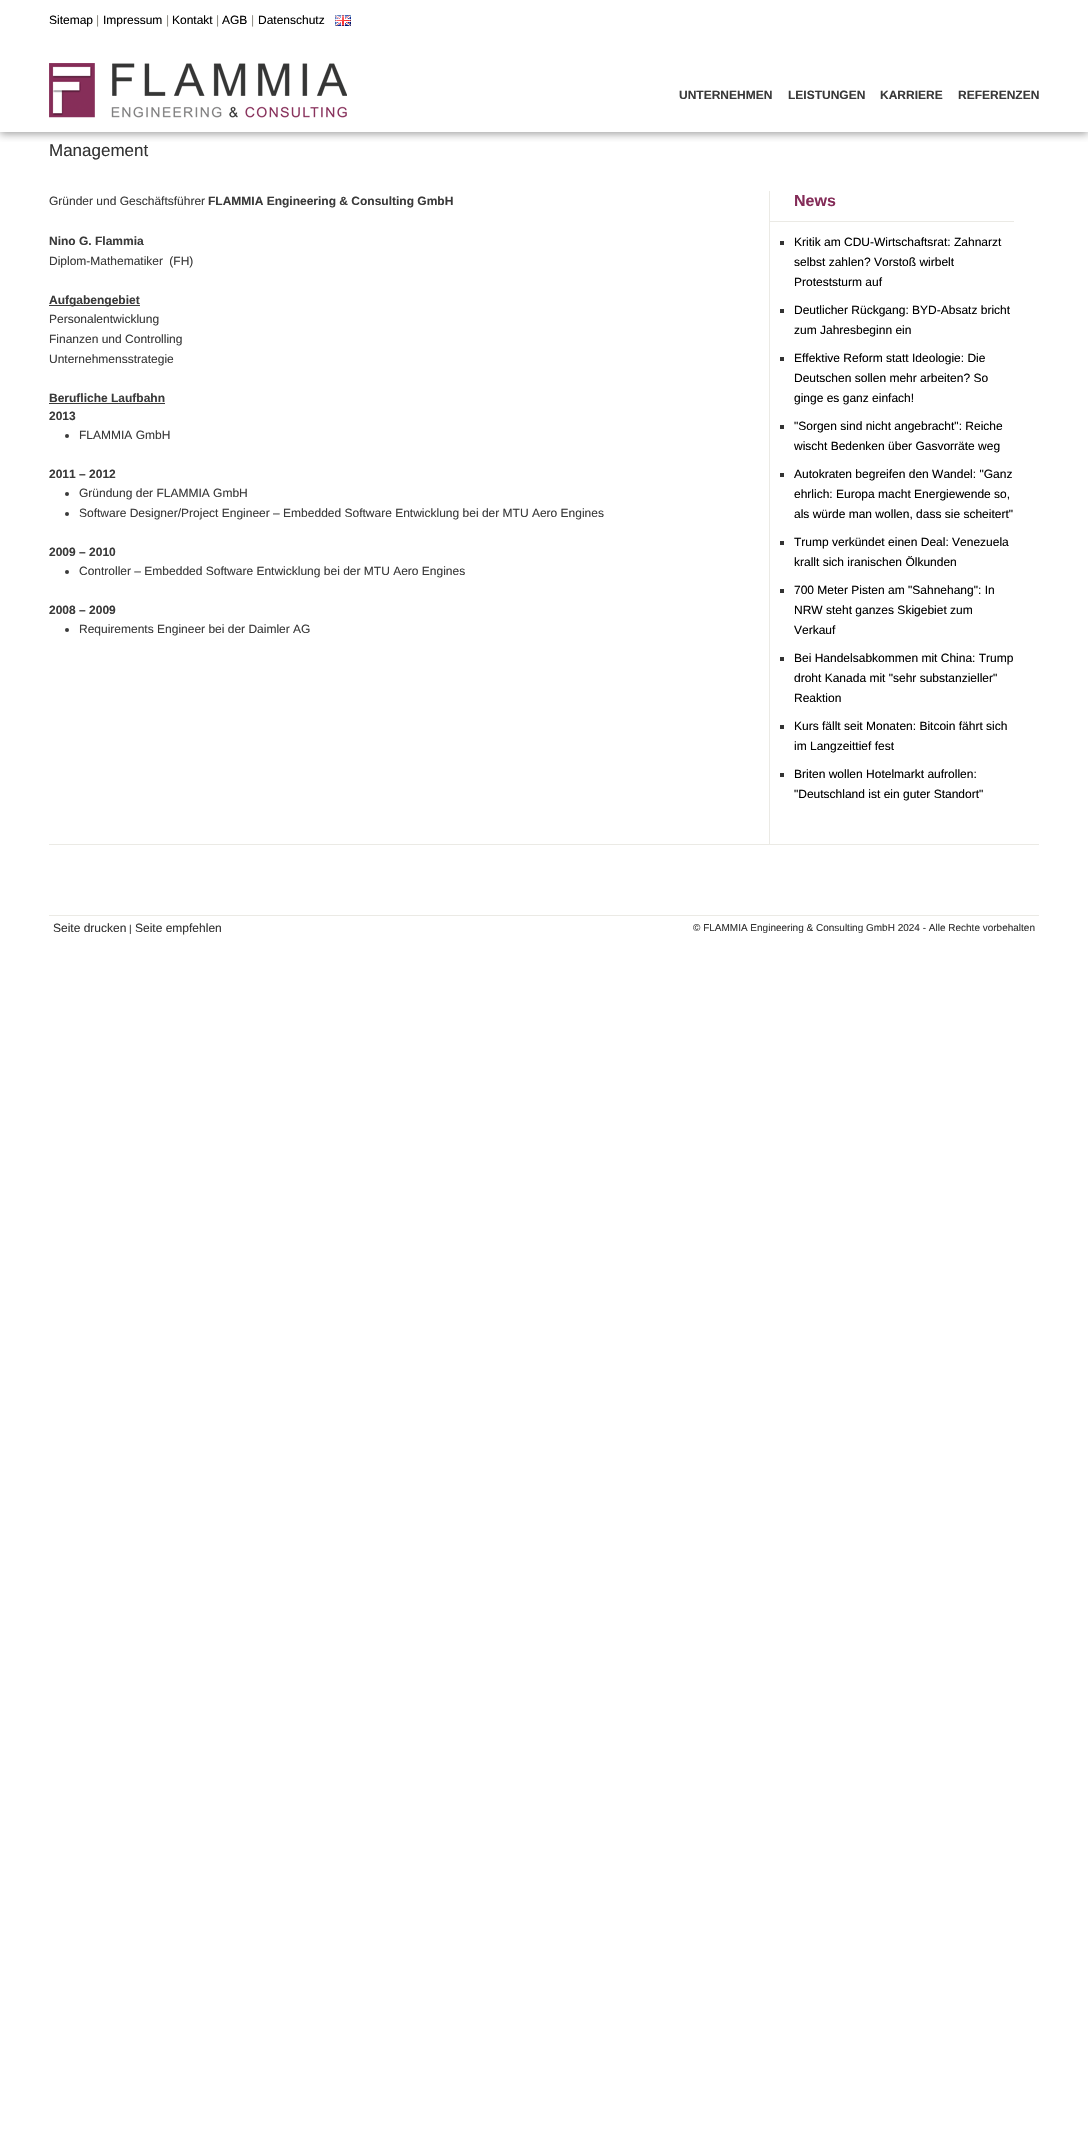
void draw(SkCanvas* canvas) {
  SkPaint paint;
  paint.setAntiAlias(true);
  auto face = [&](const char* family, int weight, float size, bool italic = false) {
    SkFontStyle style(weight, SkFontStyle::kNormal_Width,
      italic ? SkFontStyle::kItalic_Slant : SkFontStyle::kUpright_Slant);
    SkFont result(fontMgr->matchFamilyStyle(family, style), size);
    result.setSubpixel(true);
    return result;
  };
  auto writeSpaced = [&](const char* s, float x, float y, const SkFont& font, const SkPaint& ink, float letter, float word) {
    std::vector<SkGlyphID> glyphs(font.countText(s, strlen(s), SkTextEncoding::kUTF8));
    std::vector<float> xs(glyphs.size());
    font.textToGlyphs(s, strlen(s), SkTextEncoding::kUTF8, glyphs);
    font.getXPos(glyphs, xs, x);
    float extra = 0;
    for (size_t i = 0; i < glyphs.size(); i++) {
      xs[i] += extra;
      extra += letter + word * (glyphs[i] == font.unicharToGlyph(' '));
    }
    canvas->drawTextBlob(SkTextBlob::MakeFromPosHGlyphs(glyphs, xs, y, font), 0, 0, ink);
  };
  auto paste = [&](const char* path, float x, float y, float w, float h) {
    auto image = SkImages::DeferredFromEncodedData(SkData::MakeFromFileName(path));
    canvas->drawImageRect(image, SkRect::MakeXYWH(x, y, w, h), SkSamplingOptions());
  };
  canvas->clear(0xffffffff);
  canvas->save();
  canvas->clipRect(SkRect::MakeXYWH(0, 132, 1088, 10));
  paint.setColor(0xffa0a0a0);
  paint.setMaskFilter(SkMaskFilter::MakeBlur(kNormal_SkBlurStyle, 4));
  canvas->drawRect(SkRect::MakeXYWH(0, 2, 1088, 132), paint);
  paint.setMaskFilter(nullptr);
  canvas->restore();
  paste("img/1.png", 335, 15, 16, 11);
  paste("img/2.png", 49, 63, 298, 55);
  {
    const struct { float x, y, w, h; SkColor color; } items[] = {
      {769, 191, 1, 653, 0xffebeae5},
      {49, 305, 91, 1, 0xff3a3a3a},
      {49, 403, 116, 1, 0xff3a3a3a},
    };
    for (auto [x, y, w, h, color] : items) {
      paint.setColor(color);
      canvas->drawRect(SkRect::MakeXYWH(x, y, w, h), paint);
    }
  }
  canvas->drawCircle(67, 436, 2, paint);
  canvas->drawCircle(67, 494, 2, paint);
  canvas->drawCircle(67, 514, 2, paint);
  canvas->drawCircle(67, 572, 2, paint);
  canvas->drawCircle(67, 630, 2, paint);
  {
    const struct { float x, y, w, h; SkColor color; } items[] = {
      {769, 221, 245, 1, 0xffebeae5},
      {780, 241, 4, 4, 0xff333333},
      {780, 309, 4, 4, 0xff333333},
      {780, 357, 4, 4, 0xff333333},
      {780, 425, 4, 4, 0xff333333},
      {780, 473, 4, 4, 0xff333333},
      {780, 541, 4, 4, 0xff333333},
      {780, 589, 4, 4, 0xff333333},
      {780, 657, 4, 4, 0xff333333},
      {780, 725, 4, 4, 0xff333333},
      {780, 773, 4, 4, 0xff333333},
      {49, 844, 990, 1, 0xffebeae5},
      {49, 915, 990, 1, 0xffebeae5},
    };
    for (auto [x, y, w, h, color] : items) {
      paint.setColor(color);
      canvas->drawRect(SkRect::MakeXYWH(x, y, w, h), paint);
    }
  }
  auto f0 = face("Liberation Sans", 400, 12);
  paint.setColor(0xff000000);
  canvas->drawString("Sitemap", 49, 24, f0, paint);
  paint.setColor(0xff8e8c84);
  canvas->drawString("|", 96, 24, f0, paint);
  paint.setColor(0xff000000);
  canvas->drawString("Impressum", 103, 24, f0, paint);
  paint.setColor(0xff8e8c84);
  canvas->drawString("|", 166, 24, f0, paint);
  paint.setColor(0xff000000);
  canvas->drawString("Kontakt", 172, 24, f0, paint);
  paint.setColor(0xff8e8c84);
  canvas->drawString("|", 216, 24, f0, paint);
  paint.setColor(0xff000000);
  canvas->drawString("AGB", 222, 24, f0, paint);
  paint.setColor(0xff8e8c84);
  canvas->drawString("|", 251, 24, f0, paint);
  paint.setColor(0xff000000);
  canvas->drawString("Datenschutz", 258, 24, f0, paint);
  auto f1 = face("Liberation Sans", 700, 12);
  paint.setColor(0xff3a3a3a);
  {
    const struct { const char* s; float x, y; } items[] = {
      {"UNTERNEHMEN", 679, 99},
      {"LEISTUNGEN", 788, 99},
      {"KARRIERE", 880, 99},
      {"REFERENZEN", 958, 99},
    };
    for (auto [s, x, y] : items) {
      canvas->drawString(s, x, y, f1, paint);
    }
  }
  auto f2 = face("Liberation Sans", 400, 17);
  paint.setColor(0xff333333);
  canvas->drawString("Management", 49, 156, f2, paint);
  paint.setColor(0xff3a3a3a);
  canvas->drawString("Gründer und Geschäftsführer", 49, 205, f0, paint);
  canvas->drawString("FLAMMIA Engineering & Consulting GmbH", 208, 205, f1, paint);
  canvas->drawString("Nino G. Flammia", 49, 245, f1, paint);
  writeSpaced("Diplom-Mathematiker (FH)", 49, 265, f0, paint, 0, 3);
  canvas->drawString("Aufgabengebiet", 49, 304, f1, paint);
  {
    const struct { const char* s; float x, y; } items[] = {
      {"Personalentwicklung", 49, 323},
      {"Finanzen und Controlling", 49, 343},
      {"Unternehmensstrategie", 49, 363},
    };
    for (auto [s, x, y] : items) {
      canvas->drawString(s, x, y, f0, paint);
    }
  }
  canvas->drawString("Berufliche Laufbahn", 49, 402, f1, paint);
  canvas->drawString("2013", 49, 420, f1, paint);
  canvas->drawString("FLAMMIA GmbH", 79, 439, f0, paint);
  canvas->drawString("2011 – 2012", 49, 478, f1, paint);
  canvas->drawString("Gründung der FLAMMIA GmbH", 79, 497, f0, paint);
  canvas->drawString("Software Designer/Project Engineer – Embedded Software Entwicklung bei der MTU Aero Engines", 79, 517, f0, paint);
  canvas->drawString("2009 – 2010", 49, 556, f1, paint);
  canvas->drawString("Controller – Embedded Software Entwicklung bei der MTU Aero Engines", 79, 575, f0, paint);
  canvas->drawString("2008 – 2009", 49, 614, f1, paint);
  canvas->drawString("Requirements Engineer bei der Daimler AG", 79, 633, f0, paint);
  auto f3 = face("Liberation Sans", 700, 16);
  paint.setColor(0xff842c58);
  canvas->drawString("News", 794, 206, f3, paint);
  paint.setColor(0xff000000);
  {
    const struct { const char* s; float x, y; } items[] = {
      {"Kritik am CDU-Wirtschaftsrat: Zahnarzt", 794, 246},
      {"selbst zahlen? Vorstoß wirbelt", 794, 266},
      {"Proteststurm auf", 794, 286},
      {"Deutlicher Rückgang: BYD-Absatz bricht", 794, 314},
      {"zum Jahresbeginn ein", 794, 334},
      {"Effektive Reform statt Ideologie: Die", 794, 362},
      {"Deutschen sollen mehr arbeiten? So", 794, 382},
      {"ginge es ganz einfach!", 794, 402},
      {"\"Sorgen sind nicht angebracht\": Reiche", 794, 430},
      {"wischt Bedenken über Gasvorräte weg", 794, 450},
      {"Autokraten begreifen den Wandel: \"Ganz", 794, 478},
      {"ehrlich: Europa macht Energiewende so,", 794, 498},
      {"als würde man wollen, dass sie scheitert\"", 794, 518},
      {"Trump verkündet einen Deal: Venezuela", 794, 546},
      {"krallt sich iranischen Ölkunden", 794, 566},
      {"700 Meter Pisten am \"Sahnehang\": In", 794, 594},
      {"NRW steht ganzes Skigebiet zum", 794, 614},
      {"Verkauf", 794, 634},
      {"Bei Handelsabkommen mit China: Trump", 794, 662},
      {"droht Kanada mit \"sehr substanzieller\"", 794, 682},
      {"Reaktion", 794, 702},
      {"Kurs fällt seit Monaten: Bitcoin fährt sich", 794, 730},
      {"im Langzeittief fest", 794, 750},
      {"Briten wollen Hotelmarkt aufrollen:", 794, 778},
      {"\"Deutschland ist ein guter Standort\"", 794, 798},
    };
    for (auto [s, x, y] : items) {
      canvas->drawString(s, x, y, f0, paint);
    }
  }
  paint.setColor(0xff333333);
  canvas->drawString("Seite drucken", 53, 932, f0, paint);
  auto f4 = face("Liberation Sans", 400, 10);
  canvas->drawString("|", 129, 932, f4, paint);
  canvas->drawString("Seite empfehlen", 135, 932, f0, paint);
  canvas->drawString("© FLAMMIA Engineering & Consulting GmbH 2024 - Alle Rechte vorbehalten", 693, 931, f4, paint);
}
